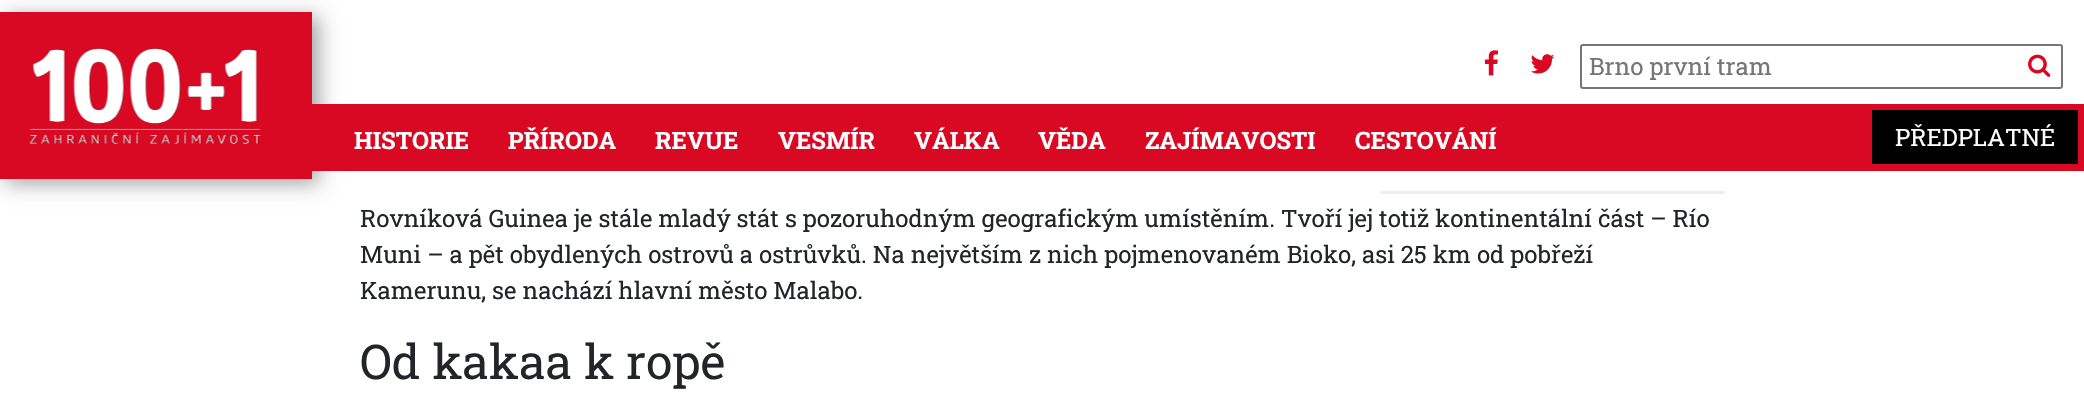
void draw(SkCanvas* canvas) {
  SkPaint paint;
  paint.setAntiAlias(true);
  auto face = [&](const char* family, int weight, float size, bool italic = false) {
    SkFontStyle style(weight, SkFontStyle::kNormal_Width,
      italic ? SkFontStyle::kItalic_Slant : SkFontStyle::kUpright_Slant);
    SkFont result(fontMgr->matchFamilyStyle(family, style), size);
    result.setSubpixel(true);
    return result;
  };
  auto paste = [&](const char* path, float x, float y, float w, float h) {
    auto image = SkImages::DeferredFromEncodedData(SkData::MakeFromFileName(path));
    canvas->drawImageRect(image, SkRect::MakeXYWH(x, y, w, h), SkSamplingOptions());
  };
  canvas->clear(0xffffffff);
  paint.setColor(0x61000000);
  paint.setMaskFilter(SkMaskFilter::MakeBlur(kNormal_SkBlurStyle, 10));
  canvas->drawRect(SkRect::MakeXYWH(6, 17, 312, 166), paint);
  paint.setMaskFilter(nullptr);
  paint.setColor(0xffd90823);
  canvas->drawRect(SkRect::MakeXYWH(0, 12, 312, 167), paint);
  paste("img/1.png", 29, 48, 232, 96);
  paste("img/2.png", 1484, 50, 14, 26);
  paste("img/3.png", 1530, 54, 25, 20);
  paint.setStroke(true);
  paint.setStrokeWidth(2);
  paint.setColor(0xff767676);
  canvas->drawRoundRect(SkRect::MakeXYWH(1581, 45, 481, 43), 2, 2, paint);
  paste("img/4.png", 2028, 54, 23, 23);
  paint.setStroke(false);
  {
    const struct { float x, y, w, h; SkColor color; } items[] = {
      {312, 104, 1772, 67, 0xffd90823},
      {1872, 110, 206, 54, 0xff000000},
      {1380, 191, 345, 3, 0xffeeeeee},
    };
    for (auto [x, y, w, h, color] : items) {
      paint.setColor(color);
      canvas->drawRect(SkRect::MakeXYWH(x, y, w, h), paint);
    }
  }
  auto f0 = face("Roboto Slab", 400, 24);
  paint.setColor(0xff757575);
  canvas->drawString("Brno první tram", 1589, 75, f0, paint);
  auto f1 = face("Roboto Slab", 700, 24);
  paint.setColor(0xffffffff);
  {
    const struct { const char* s; float x, y; } items[] = {
      {"HISTORIE", 354, 149},
      {"PŘÍRODA", 508, 149},
      {"REVUE", 655, 149},
      {"VESMÍR", 778, 149},
      {"VÁLKA", 914, 149},
      {"VĚDA", 1038, 149},
      {"ZAJÍMAVOSTI", 1145, 149},
      {"CESTOVÁNÍ", 1355, 149},
    };
    for (auto [s, x, y] : items) {
      canvas->drawString(s, x, y, f1, paint);
    }
  }
  canvas->drawString("PŘEDPLATNÉ", 1895, 146, f0, paint);
  paint.setColor(0xff212529);
  {
    const struct { const char* s; float x, y; } items[] = {
      {"Rovníková Guinea je stále mladý stát s pozoruhodným geografickým umístěním. Tvoří jej totiž kontinentální část – Río", 360, 227},
      {"Muni – a pět obydlených ostrovů a ostrůvků. Na největším z nich pojmenovaném Bioko, asi 25 km od pobřeží", 360, 263},
      {"Kamerunu, se nachází hlavní město Malabo.", 360, 299},
    };
    for (auto [s, x, y] : items) {
      canvas->drawString(s, x, y, f0, paint);
    }
  }
  auto f2 = face("Roboto Slab", 400, 48);
  canvas->drawString("Od kakaa k ropě", 360, 379, f2, paint);
}
